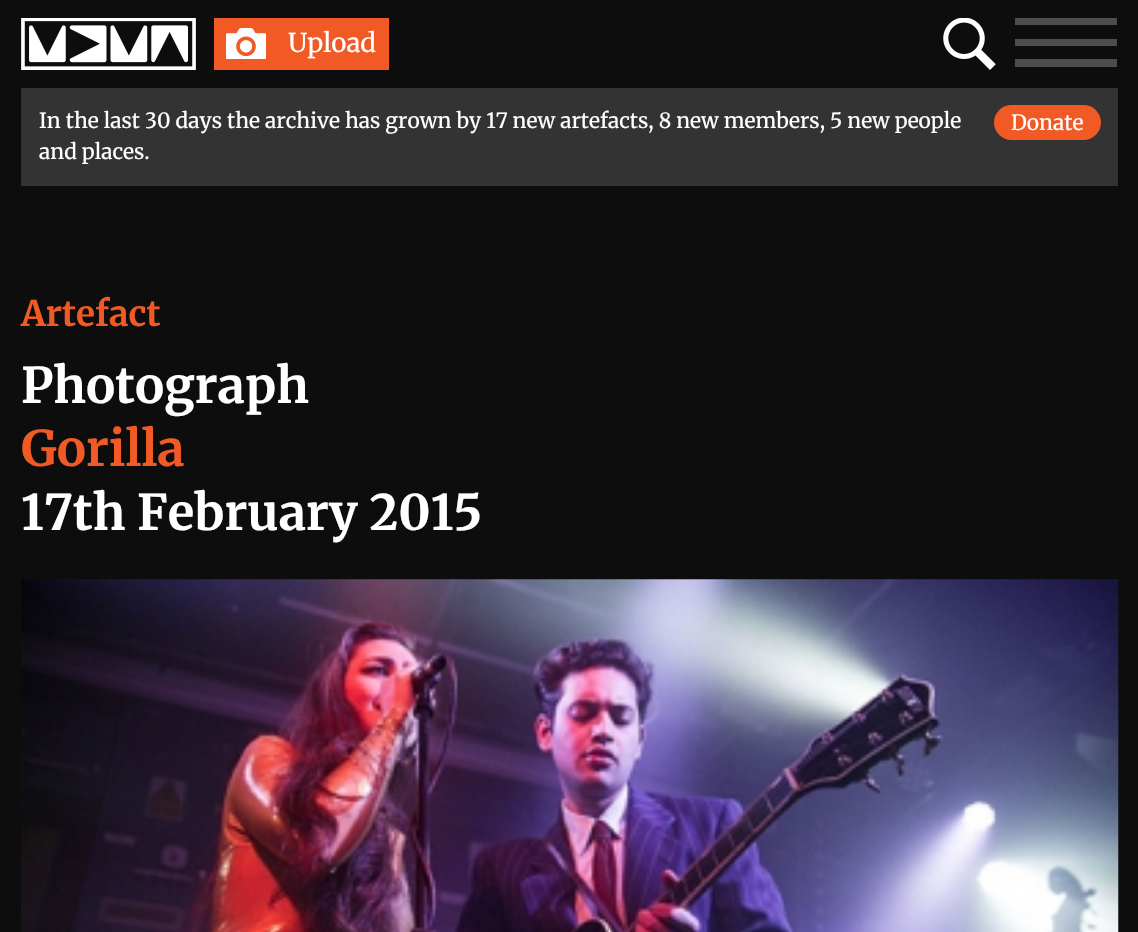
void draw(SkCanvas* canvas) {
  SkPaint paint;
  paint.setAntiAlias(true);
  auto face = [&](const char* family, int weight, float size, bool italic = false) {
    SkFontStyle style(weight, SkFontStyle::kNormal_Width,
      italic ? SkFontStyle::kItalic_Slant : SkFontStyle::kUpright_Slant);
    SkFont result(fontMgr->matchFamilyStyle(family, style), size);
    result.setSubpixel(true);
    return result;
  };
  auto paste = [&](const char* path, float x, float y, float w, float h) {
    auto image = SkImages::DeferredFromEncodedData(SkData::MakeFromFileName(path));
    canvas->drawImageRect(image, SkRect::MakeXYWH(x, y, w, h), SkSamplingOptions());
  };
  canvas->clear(0xff0d0d0d);
  paste("img/1.png", 21, 18, 175, 52);
  paint.setColor(0xfff15a25);
  canvas->drawRect(SkRect::MakeXYWH(214, 18, 175, 52), paint);
  paste("img/2.png", 226, 28, 40, 31);
  paste("img/3.png", 943, 18, 53, 52);
  {
    const struct { float x, y, w, h; SkColor color; } items[] = {
      {1015, 18, 102, 7, 0xff4d4d4d},
      {1015, 39, 102, 7, 0xff4d4d4d},
      {1015, 59, 102, 8, 0xff4d4d4d},
      {21, 88, 1097, 98, 0xff333333},
    };
    for (auto [x, y, w, h, color] : items) {
      paint.setColor(color);
      canvas->drawRect(SkRect::MakeXYWH(x, y, w, h), paint);
    }
  }
  paint.setColor(0xfff15a25);
  canvas->drawRoundRect(SkRect::MakeXYWH(994, 105, 107, 35), 17.5f, 17.5f, paint);
  paste("img/4.png", 21, 579, 1098, 353);
  auto f0 = face("Merriweather", 400, 26);
  paint.setColor(0xffffffff);
  canvas->drawString("Upload", 288, 52, f0, paint);
  auto f1 = face("Merriweather", 400, 21);
  {
    const struct { const char* s; float x, y; } items[] = {
      {"In the last 30 days the archive has grown by 17 new artefacts, 8 new members, 5 new people", 39, 128},
      {"and places.", 39, 159},
      {"Donate", 1011, 130},
    };
    for (auto [s, x, y] : items) {
      canvas->drawString(s, x, y, f1, paint);
    }
  }
  auto f2 = face("Merriweather", 700, 35);
  paint.setColor(0xfff15a25);
  canvas->drawString("Artefact", 21, 326, f2, paint);
  auto f3 = face("Merriweather", 700, 49);
  paint.setColor(0xffffffff);
  canvas->drawString("Photograph", 21, 403, f3, paint);
  paint.setColor(0xfff15a25);
  canvas->drawString("Gorilla", 21, 466, f3, paint);
  paint.setColor(0xffffffff);
  canvas->drawString("17th February 2015", 21, 530, f3, paint);
}
